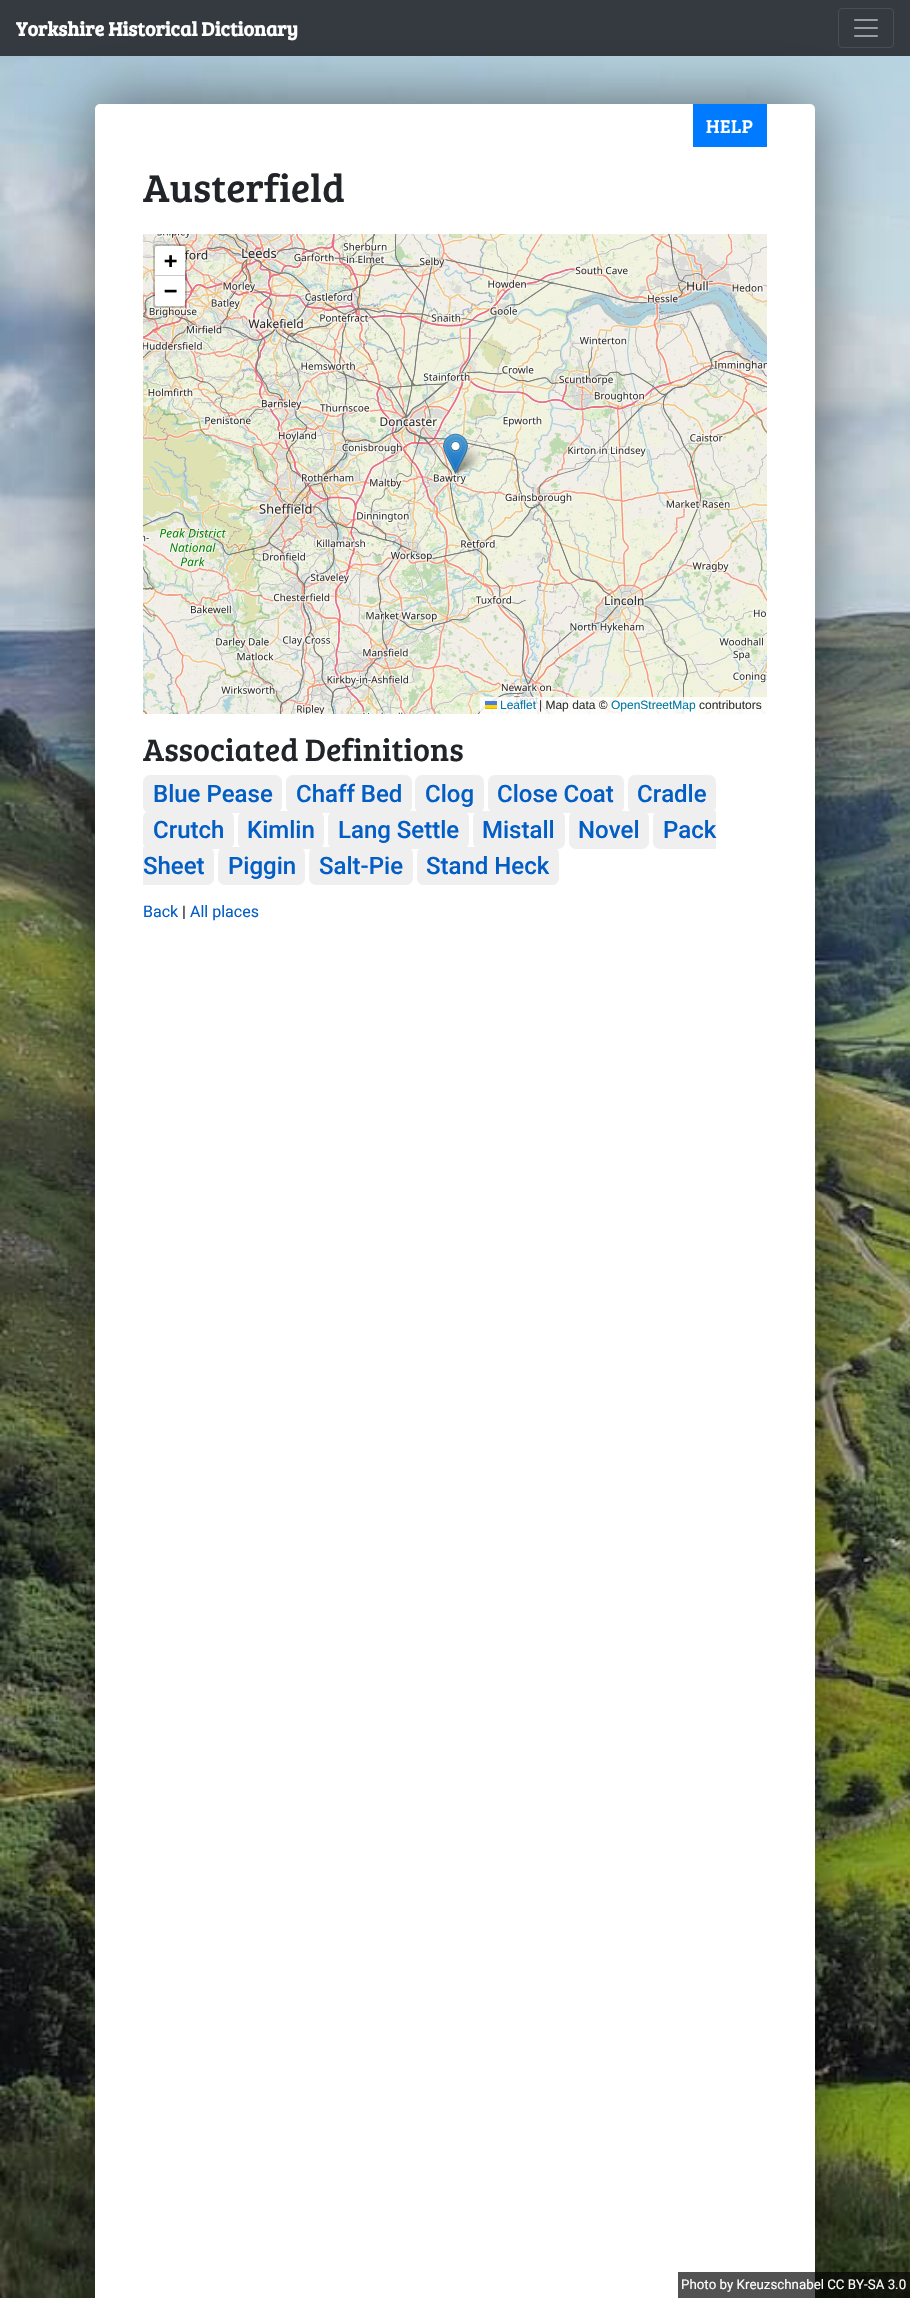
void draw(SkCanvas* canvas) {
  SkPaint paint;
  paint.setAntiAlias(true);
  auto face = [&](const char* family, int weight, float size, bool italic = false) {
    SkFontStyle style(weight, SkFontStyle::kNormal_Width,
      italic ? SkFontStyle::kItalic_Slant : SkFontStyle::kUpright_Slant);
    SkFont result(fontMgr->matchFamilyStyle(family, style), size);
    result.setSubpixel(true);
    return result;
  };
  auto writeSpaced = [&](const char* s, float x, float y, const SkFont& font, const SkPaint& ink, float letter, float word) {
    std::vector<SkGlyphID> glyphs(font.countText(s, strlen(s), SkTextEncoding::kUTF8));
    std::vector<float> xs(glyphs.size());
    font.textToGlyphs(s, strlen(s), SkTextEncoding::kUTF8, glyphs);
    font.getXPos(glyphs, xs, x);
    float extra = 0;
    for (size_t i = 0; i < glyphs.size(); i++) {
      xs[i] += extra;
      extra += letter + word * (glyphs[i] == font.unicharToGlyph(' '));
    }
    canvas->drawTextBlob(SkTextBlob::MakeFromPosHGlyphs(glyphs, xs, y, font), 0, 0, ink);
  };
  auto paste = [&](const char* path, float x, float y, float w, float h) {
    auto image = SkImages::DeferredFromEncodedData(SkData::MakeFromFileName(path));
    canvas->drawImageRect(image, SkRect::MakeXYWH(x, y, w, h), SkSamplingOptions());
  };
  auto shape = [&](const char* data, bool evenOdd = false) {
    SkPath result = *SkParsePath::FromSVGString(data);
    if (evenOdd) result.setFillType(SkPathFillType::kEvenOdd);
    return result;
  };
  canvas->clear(0xffffffff);
  paste("img/1.png", 0, 56, 910, 2242);
  paint.setColor(0xff343a40);
  canvas->drawRect(SkRect::MakeXYWH(0, 0, 910, 56), paint);
  paint.setStroke(true);
  paint.setStrokeWidth(1);
  paint.setColor(0xff484e53);
  canvas->drawRoundRect(SkRect::MakeXYWH(838.5f, 8.5f, 55, 39), 3.5f, 3.5f, paint);
  paste("img/2.png", 854, 19, 24, 18);
  paint.setStroke(false);
  paint.setColor(0x85000000);
  paint.setMaskFilter(SkMaskFilter::MakeBlur(kNormal_SkBlurStyle, 32));
  canvas->drawRoundRect(SkRect::MakeXYWH(95, 104, 720, 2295), 5, 5, paint);
  paint.setMaskFilter(nullptr);
  paint.setColor(0xffffffff);
  canvas->drawRoundRect(SkRect::MakeXYWH(95, 104, 720, 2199), 5, 5, paint);
  paint.setColor(0xff007bff);
  canvas->drawRect(SkRect::MakeXYWH(693, 104, 74, 43), paint);
  paste("img/3.png", 143, 234, 166, 49);
  paste("img/4.png", 309, 234, 256, 49);
  paste("img/5.png", 565, 234, 202, 49);
  paste("img/6.png", 143, 283, 166, 256);
  paste("img/7.png", 309, 283, 256, 256);
  paste("img/8.png", 565, 283, 202, 256);
  paste("img/9.png", 143, 539, 166, 175);
  paste("img/10.png", 309, 539, 256, 175);
  paste("img/11.png", 565, 539, 202, 175);
  paste("img/13.png", 453, 446, 29, 28);
  paste("img/12.png", 443, 433, 25, 41);
  paint.setStroke(true);
  paint.setStrokeWidth(2);
  paint.setColor(0x33000000);
  canvas->drawRoundRect(SkRect::MakeXYWH(154, 245, 32, 62), 3, 3, paint);
  paint.setStroke(false);
  paint.setColor(0xffffffff);
  canvas->drawPath(shape("M157 246H183C184 246 185 247 185 248V276H155V248C155 247 156 246 157 246Z"), paint);
  paint.setColor(0xffcccccc);
  canvas->drawRect(SkRect::MakeXYWH(155, 275, 30, 1), paint);
  paint.setColor(0xffffffff);
  canvas->drawPath(shape("M155 276H185V304C185 305 184 306 183 306H157C156 306 155 305 155 304Z"), paint);
  {
    const struct { float x, y, w, h; SkColor color; } items[] = {
      {480, 697, 287, 17, 0xccffffff},
      {485, 701, 12, 4, 0xff4c7be1},
      {485, 705, 12, 3, 0xffffd500},
      {485, 708, 12, 1, 0xffe0bc00},
    };
    for (auto [x, y, w, h, color] : items) {
      paint.setColor(color);
      canvas->drawRect(SkRect::MakeXYWH(x, y, w, h), paint);
    }
  }
  paint.setColor(0xffefefef);
  canvas->drawRoundRect(SkRect::MakeXYWH(143, 775, 139, 38), 7, 7, paint);
  canvas->drawRoundRect(SkRect::MakeXYWH(286, 775, 126, 38), 7, 7, paint);
  canvas->drawRoundRect(SkRect::MakeXYWH(415, 775, 69, 38), 7, 7, paint);
  canvas->drawRoundRect(SkRect::MakeXYWH(488, 775, 136, 38), 7, 7, paint);
  canvas->drawRoundRect(SkRect::MakeXYWH(628, 775, 88, 38), 7, 7, paint);
  canvas->drawRoundRect(SkRect::MakeXYWH(143, 811, 91, 38), 7, 7, paint);
  canvas->drawRoundRect(SkRect::MakeXYWH(238, 811, 86, 38), 7, 7, paint);
  canvas->drawRoundRect(SkRect::MakeXYWH(328, 811, 141, 38), 7, 7, paint);
  canvas->drawRoundRect(SkRect::MakeXYWH(473, 811, 92, 38), 7, 7, paint);
  canvas->drawRoundRect(SkRect::MakeXYWH(569, 811, 80, 38), 7, 7, paint);
  canvas->drawPath(shape("M660 811H716V849H660C656 849 653 846 653 842V818C653 814 656 811 660 811Z"), paint);
  canvas->drawPath(shape("M143 847H207C211 847 214 850 214 854V878C214 882 211 885 207 885H143Z"), paint);
  canvas->drawRoundRect(SkRect::MakeXYWH(218, 847, 87, 38), 7, 7, paint);
  canvas->drawRoundRect(SkRect::MakeXYWH(309, 847, 104, 38), 7, 7, paint);
  canvas->drawRoundRect(SkRect::MakeXYWH(417, 847, 142, 38), 7, 7, paint);
  paint.setColor(0xad000000);
  canvas->drawRect(SkRect::MakeXYWH(678, 2272, 232, 26), paint);
  auto f0 = face("Bree Serif", 700, 20);
  paint.setColor(0xffffffff);
  canvas->drawString("Yorkshire Historical Dictionary", 16, 36, f0, paint);
  auto f1 = face("Bree Serif", 400, 19);
  writeSpaced("HELP", 706, 133, f1, paint, 0.5f, 0);
  auto f2 = face("Bree Serif", 400, 40);
  paint.setColor(0xff212529);
  canvas->drawString("Austerfield", 143, 202, f2, paint);
  auto f3 = face("DejaVu Sans Mono", 700, 22);
  paint.setColor(0xff000000);
  canvas->drawString("+", 164, 268, f3, paint);
  canvas->drawString("−", 164, 298, f3, paint);
  auto f4 = face("Liberation Sans", 400, 12);
  paint.setColor(0xff0078a8);
  canvas->drawString("Leaflet", 500, 709, f4, paint);
  paint.setColor(0xff333333);
  canvas->drawString("| Map data ©", 539, 709, f4, paint);
  paint.setColor(0xff0078a8);
  canvas->drawString("OpenStreetMap", 611, 709, f4, paint);
  paint.setColor(0xff333333);
  canvas->drawString("contributors", 699, 709, f4, paint);
  auto f5 = face("Bree Serif", 400, 32);
  paint.setColor(0xff212529);
  canvas->drawString("Associated Definitions", 143, 761, f5, paint);
  auto f6 = face("Roboto", 500, 24);
  paint.setColor(0xff025dc5);
  {
    const struct { const char* s; float x, y; } items[] = {
      {"Blue Pease", 153, 802},
      {"Chaff Bed", 296, 802},
      {"Clog", 425, 802},
      {"Close Coat", 497, 802},
      {"Cradle", 637, 802},
      {"Crutch", 153, 838},
      {"Kimlin", 247, 838},
      {"Lang Settle", 338, 838},
      {"Mistall", 482, 838},
      {"Novel", 578, 838},
      {"Pack", 663, 838},
      {"Sheet", 143, 874},
      {"Piggin", 228, 874},
      {"Salt-Pie", 319, 874},
      {"Stand Heck", 426, 874},
    };
    for (auto [s, x, y] : items) {
      canvas->drawString(s, x, y, f6, paint);
    }
  }
  auto f7 = face("Roboto", 400, 16);
  canvas->drawString("Back", 143, 917, f7, paint);
  paint.setColor(0xff212529);
  canvas->drawString("|", 182, 917, f7, paint);
  paint.setColor(0xff025dc5);
  canvas->drawString("All places", 190, 917, f7, paint);
  auto f8 = face("Roboto", 400, 13.3f);
  paint.setColor(0xffffffff);
  canvas->drawString("Photo by Kreuzschnabel CC BY-SA 3.0", 681, 2289, f8, paint);
}
